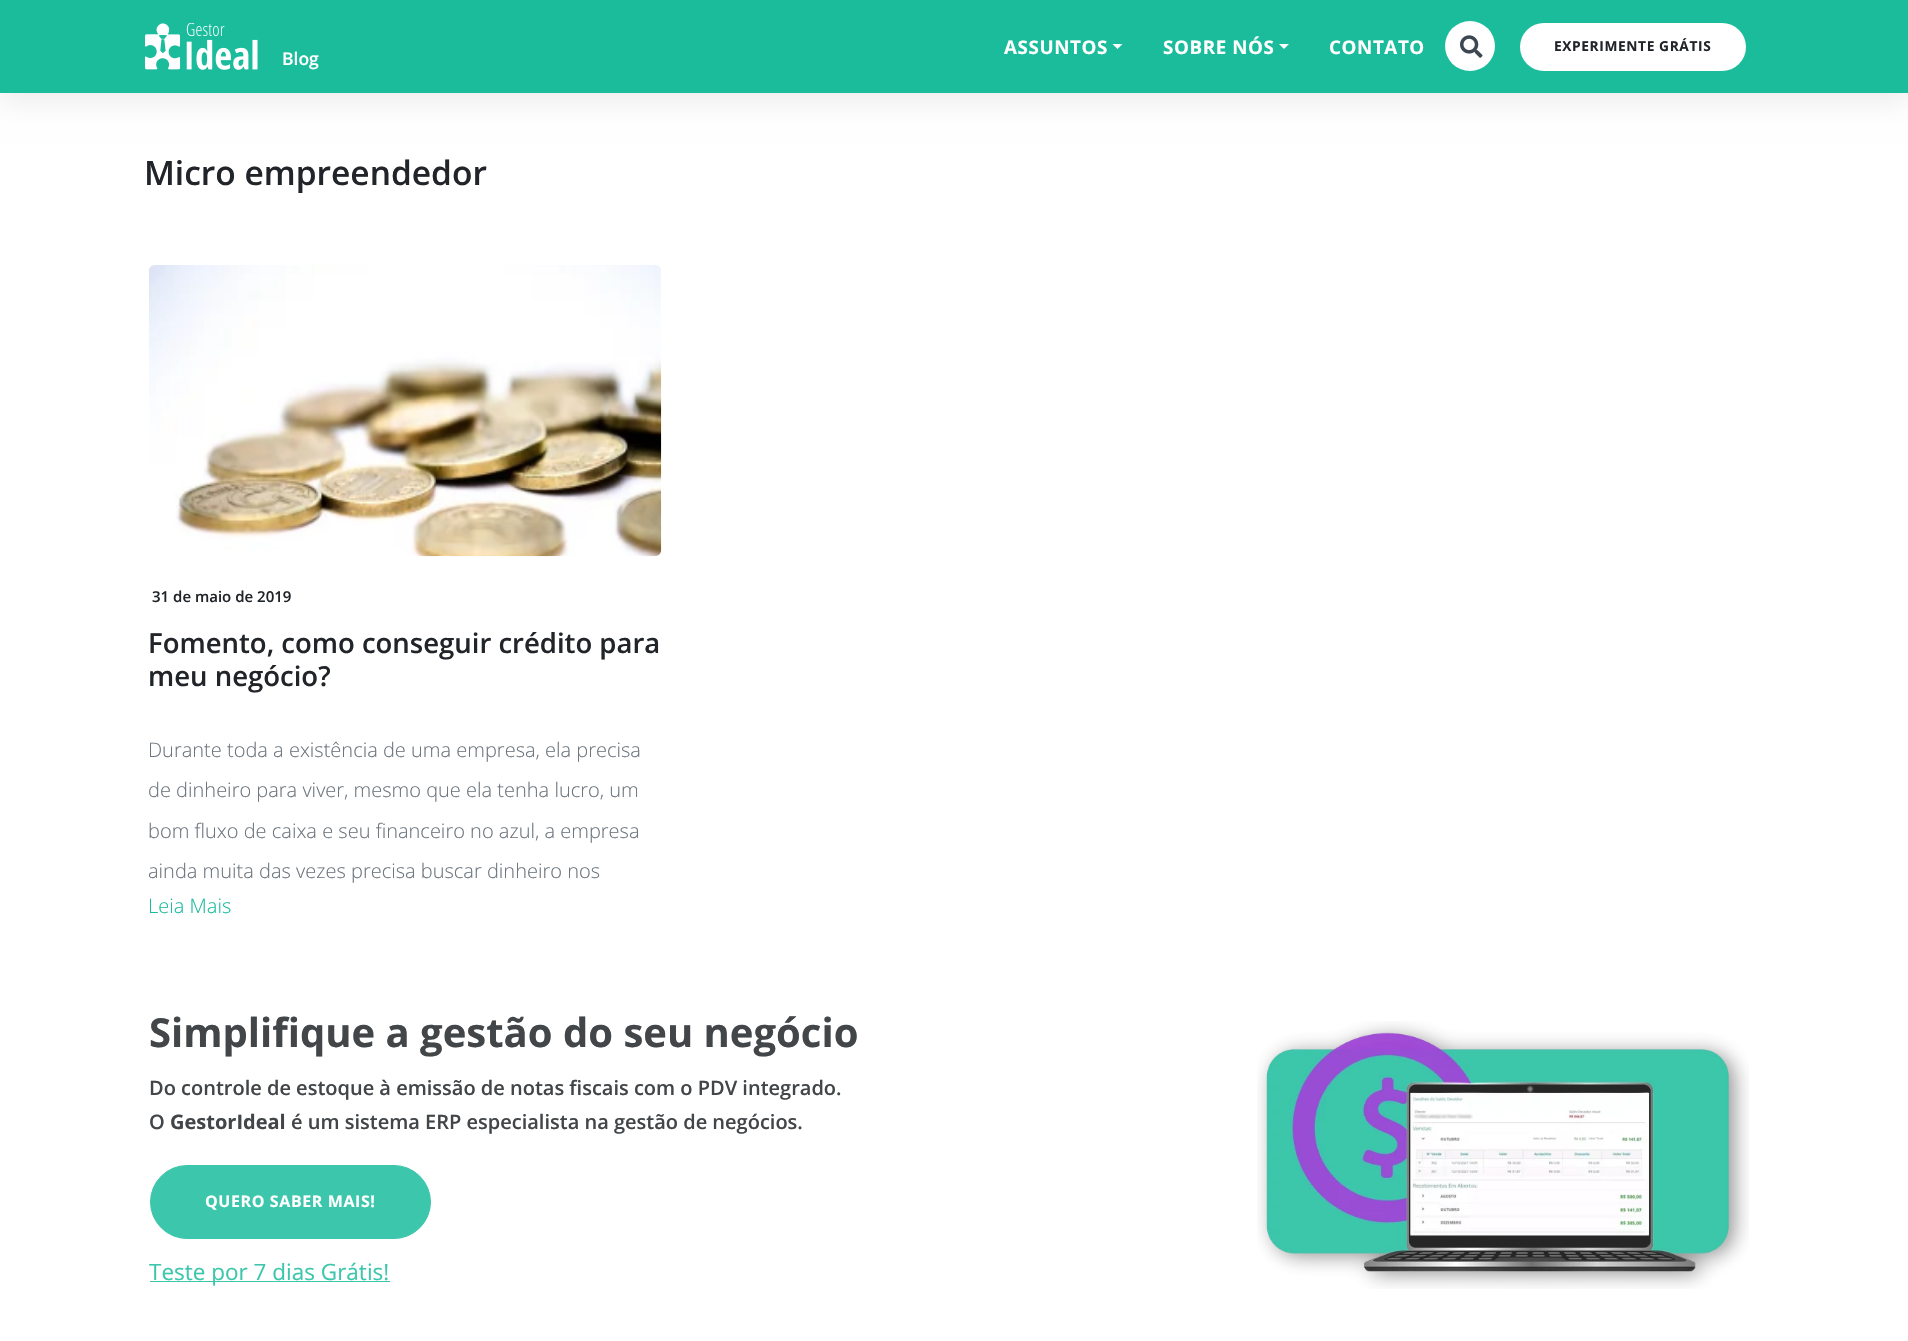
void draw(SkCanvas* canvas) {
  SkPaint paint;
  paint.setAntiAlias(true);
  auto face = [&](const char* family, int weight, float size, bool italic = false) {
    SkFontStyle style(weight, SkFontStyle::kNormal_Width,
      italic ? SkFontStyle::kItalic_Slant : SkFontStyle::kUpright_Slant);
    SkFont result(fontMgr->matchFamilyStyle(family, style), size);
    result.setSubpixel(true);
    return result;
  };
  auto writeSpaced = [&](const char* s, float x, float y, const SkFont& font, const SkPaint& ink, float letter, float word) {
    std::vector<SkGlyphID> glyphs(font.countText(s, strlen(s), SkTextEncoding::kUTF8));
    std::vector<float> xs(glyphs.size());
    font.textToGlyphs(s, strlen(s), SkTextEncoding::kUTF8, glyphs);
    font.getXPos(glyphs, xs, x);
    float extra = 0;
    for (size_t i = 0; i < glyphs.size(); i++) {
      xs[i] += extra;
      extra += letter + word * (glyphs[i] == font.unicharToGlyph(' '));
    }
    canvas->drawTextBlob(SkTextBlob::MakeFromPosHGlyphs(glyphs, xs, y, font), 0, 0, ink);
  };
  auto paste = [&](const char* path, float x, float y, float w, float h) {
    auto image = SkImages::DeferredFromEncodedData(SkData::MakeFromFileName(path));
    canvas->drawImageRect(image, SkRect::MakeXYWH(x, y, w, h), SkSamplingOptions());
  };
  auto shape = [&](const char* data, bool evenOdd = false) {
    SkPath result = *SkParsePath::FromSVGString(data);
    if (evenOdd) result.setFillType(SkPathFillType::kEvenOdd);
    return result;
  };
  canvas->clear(0xffffffff);
  paint.setColor(0x14000000);
  paint.setMaskFilter(SkMaskFilter::MakeBlur(kNormal_SkBlurStyle, 14));
  canvas->drawRect(SkRect::MakeXYWH(0, 9, 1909, 92), paint);
  paint.setMaskFilter(nullptr);
  paint.setColor(0xff1abc9c);
  canvas->drawRect(SkRect::MakeXYWH(0, 0, 1908, 93), paint);
  paint.setColor(0xffffffff);
  canvas->drawPath(shape("M1112.5 44H1122.5L1117.5 49Z"), paint);
  canvas->drawPath(shape("M1279 44H1289L1284 49Z"), paint);
  canvas->drawCircle(1470, 46, 25, paint);
  paste("img/1.png", 1460, 35, 23, 23);
  canvas->drawRoundRect(SkRect::MakeXYWH(1520, 23, 226, 48), 24, 24, paint);
  paste("img/2.png", 145, 23, 113, 47);
  paste("img/3.png", 149, 265, 513, 292);
  paint.setColor(0xff3cc6ab);
  canvas->drawRoundRect(SkRect::MakeXYWH(150.5f, 1165.5f, 280, 73), 36.5f, 36.5f, paint);
  paint.setStroke(true);
  paint.setStrokeWidth(1);
  canvas->drawRoundRect(SkRect::MakeXYWH(150.5f, 1165.5f, 280, 73), 36.5f, 36.5f, paint);
  paint.setStroke(false);
  canvas->drawRect(SkRect::MakeXYWH(150, 1281, 240, 1), paint);
  paste("img/4.png", 1257, 1021, 492, 268);
  auto f0 = face("Open Sans", 700, 18.75f);
  paint.setColor(0xffffffff);
  {
    const struct { const char* s; float x, y; } items[] = {
      {"ASSUNTOS", 1004, 54},
      {"SOBRE NÓS", 1163, 54},
      {"CONTATO", 1329, 54},
    };
    for (auto [s, x, y] : items) {
      writeSpaced(s, x, y, f0, paint, 0.6f, 0);
    }
  }
  auto f1 = face("Open Sans", 700, 13.75f);
  paint.setColor(0xff212529);
  writeSpaced("EXPERIMENTE GRÁTIS", 1554, 51, f1, paint, 0.6f, 0);
  auto f2 = face("Open Sans", 600, 17.5f);
  paint.setColor(0xffffffff);
  canvas->drawString("Blog", 282, 65, f2, paint);
  auto f3 = face("Open Sans", 600, 33.5f);
  paint.setColor(0xff212529);
  canvas->drawString("Micro empreendedor", 144, 185, f3, paint);
  auto f4 = face("Open Sans", 600, 15);
  canvas->drawString("31 de maio de 2019", 152, 602, f4, paint);
  auto f5 = face("Open Sans", 600, 27.5f);
  canvas->drawString("Fomento, como conseguir crédito para", 148, 653, f5, paint);
  canvas->drawString("meu negócio?", 148, 686, f5, paint);
  auto f6 = face("Open Sans", 300, 20);
  paint.setColor(0xff6c757d);
  {
    const struct { const char* s; float x, y; } items[] = {
      {"Durante toda a existência de uma empresa, ela precisa", 148, 757},
      {"de dinheiro para viver, mesmo que ela tenha lucro, um", 148, 797},
      {"bom fluxo de caixa e seu financeiro no azul, a empresa", 148, 838},
      {"ainda muita das vezes precisa buscar dinheiro nos", 148, 878},
    };
    for (auto [s, x, y] : items) {
      canvas->drawString(s, x, y, f6, paint);
    }
  }
  paint.setColor(0xff1abc9c);
  canvas->drawString("Leia Mais", 148, 913, f6, paint);
  auto f7 = face("Open Sans", 700, 40);
  paint.setColor(0xff424649);
  canvas->drawString("Simplifique a gestão do seu negócio", 149, 1047, f7, paint);
  auto f8 = face("Open Sans", 600, 20);
  canvas->drawString("Do controle de estoque à emissão de notas fiscais com o PDV integrado.", 149, 1095, f8, paint);
  canvas->drawString("O", 149, 1129, f8, paint);
  auto f9 = face("Open Sans", 700, 20);
  canvas->drawString("GestorIdeal", 170, 1129, f9, paint);
  canvas->drawString("é um sistema ERP especialista na gestão de negócios.", 291, 1129, f8, paint);
  auto f10 = face("Open Sans", 700, 16);
  paint.setColor(0xffffffff);
  writeSpaced("QUERO SABER MAIS!", 205, 1207, f10, paint, 0.6f, 0);
  auto f11 = face("Open Sans", 400, 22.5f);
  paint.setColor(0xff3cc6ab);
  canvas->drawString("Teste por 7 dias Grátis!", 149, 1280, f11, paint);
}
